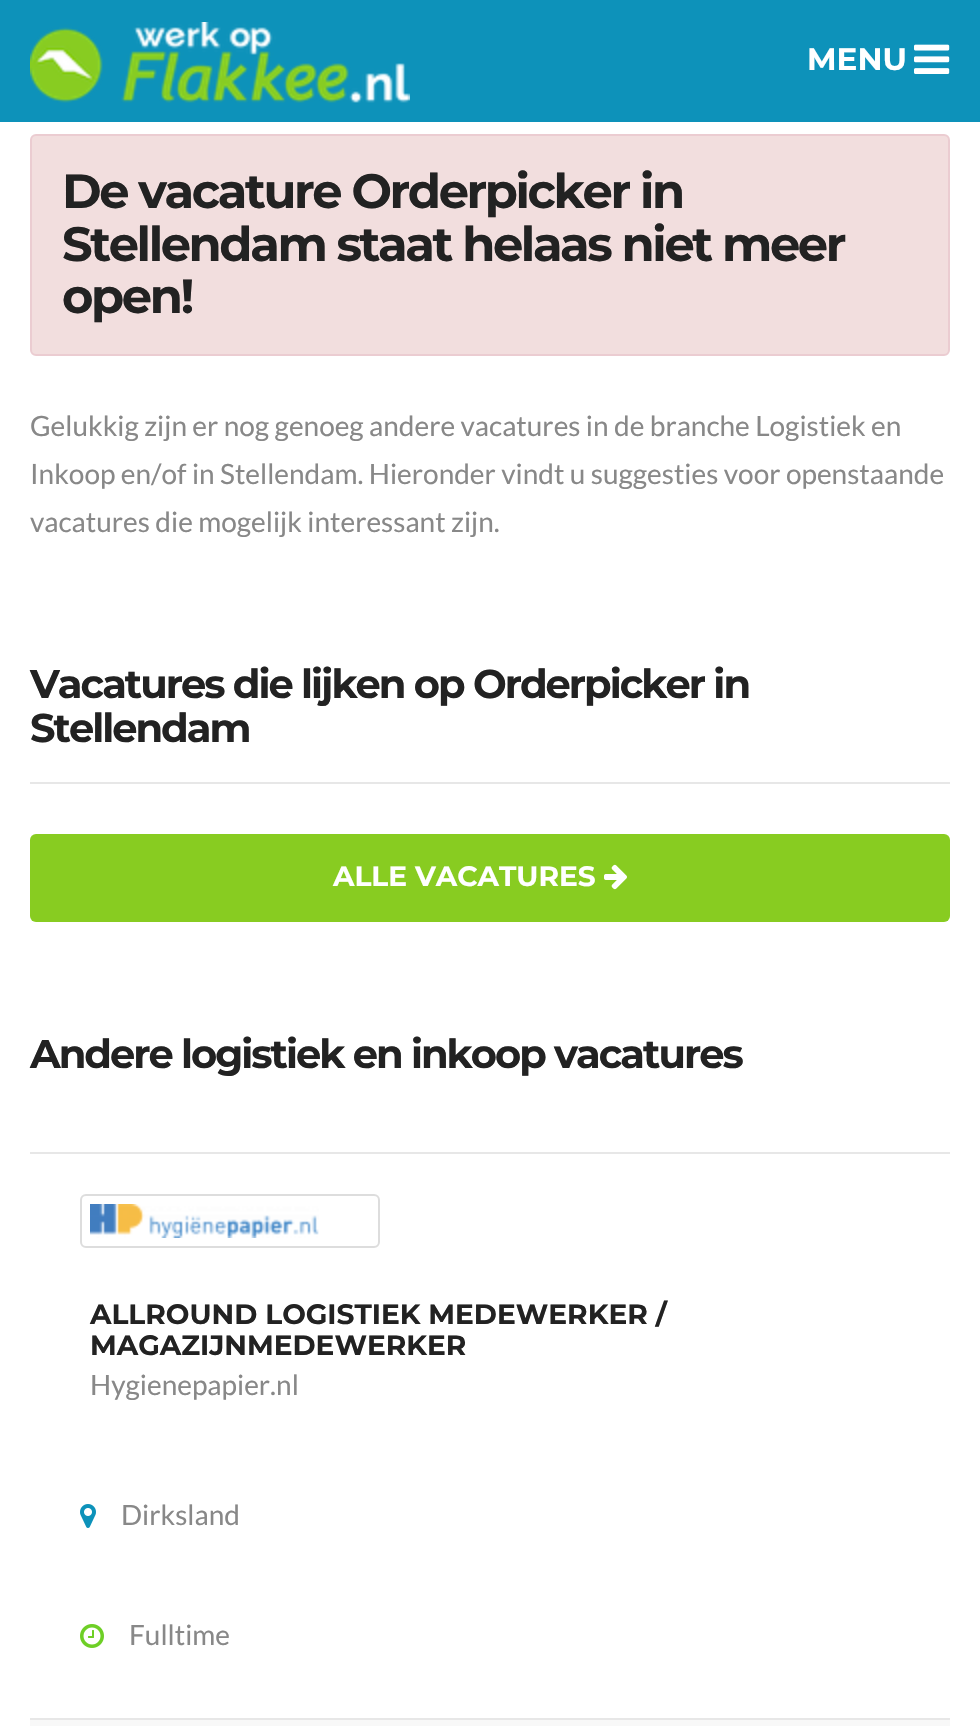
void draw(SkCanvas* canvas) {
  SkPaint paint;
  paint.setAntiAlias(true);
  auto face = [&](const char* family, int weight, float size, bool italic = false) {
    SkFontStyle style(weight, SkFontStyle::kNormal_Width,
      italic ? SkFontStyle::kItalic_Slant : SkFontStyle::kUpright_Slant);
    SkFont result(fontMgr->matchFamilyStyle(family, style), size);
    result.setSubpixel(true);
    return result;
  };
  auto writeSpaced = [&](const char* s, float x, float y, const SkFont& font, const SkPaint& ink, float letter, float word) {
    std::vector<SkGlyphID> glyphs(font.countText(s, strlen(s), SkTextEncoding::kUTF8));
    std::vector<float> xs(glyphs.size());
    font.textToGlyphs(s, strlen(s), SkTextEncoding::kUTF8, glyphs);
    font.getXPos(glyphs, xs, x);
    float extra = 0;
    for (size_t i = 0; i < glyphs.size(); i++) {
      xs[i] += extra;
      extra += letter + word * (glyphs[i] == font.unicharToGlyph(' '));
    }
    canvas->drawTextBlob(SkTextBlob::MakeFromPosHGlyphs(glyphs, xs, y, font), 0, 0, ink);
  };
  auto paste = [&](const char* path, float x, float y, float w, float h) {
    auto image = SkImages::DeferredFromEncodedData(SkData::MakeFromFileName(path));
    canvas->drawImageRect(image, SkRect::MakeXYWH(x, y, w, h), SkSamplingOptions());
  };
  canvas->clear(0xffffffff);
  paint.setColor(0xff0d92ba);
  canvas->drawRect(SkRect::MakeXYWH(0, 0, 980, 122), paint);
  paste("img/1.png", 30, 22, 380, 81);
  paste("img/2.png", 914, 44, 36, 30);
  paint.setColor(0xfff2dede);
  canvas->drawRoundRect(SkRect::MakeXYWH(31, 135, 918, 220), 5, 5, paint);
  paint.setStroke(true);
  paint.setStrokeWidth(2);
  paint.setColor(0xffebccd1);
  canvas->drawRoundRect(SkRect::MakeXYWH(31, 135, 918, 220), 5, 5, paint);
  paint.setStroke(false);
  paint.setColor(0xffe7e7e7);
  canvas->drawRect(SkRect::MakeXYWH(30, 782, 920, 2), paint);
  paint.setColor(0xff88cc21);
  canvas->drawRoundRect(SkRect::MakeXYWH(30, 834, 920, 88), 6, 6, paint);
  paste("img/3.png", 604, 864, 23, 26);
  paint.setColor(0xffe7e7e7);
  canvas->drawRect(SkRect::MakeXYWH(30, 1152, 920, 2), paint);
  canvas->drawRect(SkRect::MakeXYWH(30, 1718, 920, 2), paint);
  paint.setStroke(true);
  paint.setColor(0xffdddddd);
  canvas->drawRoundRect(SkRect::MakeXYWH(81, 1195, 298, 52), 5, 5, paint);
  paste("img/4.png", 90, 1204, 229, 34);
  paste("img/5.png", 80, 1504, 16, 24);
  paste("img/6.png", 80, 1624, 24, 24);
  paint.setStroke(false);
  paint.setColor(0xfff8f8f8);
  canvas->drawRect(SkRect::MakeXYWH(30, 1720, 920, 6), paint);
  auto f0 = face("Montserrat", 100, 31);
  paint.setColor(0xffffffff);
  canvas->drawString("MENU", 807, 70, f0, paint);
  auto f1 = face("Montserrat", 100, 48);
  paint.setColor(0xff222222);
  {
    const struct { const char* s; float x, y; } items[] = {
      {"De vacature Orderpicker in", 62, 208},
      {"Stellendam staat helaas niet meer", 62, 261},
      {"open!", 62, 313},
    };
    for (auto [s, x, y] : items) {
      writeSpaced(s, x, y, f1, paint, -2.4f, 0);
    }
  }
  auto f2 = face("Lato", 400, 28);
  paint.setColor(0xff888888);
  {
    const struct { const char* s; float x, y; } items[] = {
      {"Gelukkig zijn er nog genoeg andere vacatures in de branche Logistiek en", 30, 436},
      {"Inkoop en/of in Stellendam. Hieronder vindt u suggesties voor openstaande", 30, 484},
      {"vacatures die mogelijk interessant zijn.", 30, 532},
    };
    for (auto [s, x, y] : items) {
      canvas->drawString(s, x, y, f2, paint);
    }
  }
  auto f3 = face("Montserrat", 100, 40);
  paint.setColor(0xff222222);
  writeSpaced("Vacatures die lijken op Orderpicker in", 30, 698, f3, paint, -2, 0);
  writeSpaced("Stellendam", 30, 742, f3, paint, -2, 0);
  auto f4 = face("Montserrat", 100, 28);
  paint.setColor(0xffffffff);
  canvas->drawString("ALLE VACATURES", 333, 886, f4, paint);
  paint.setColor(0xff222222);
  writeSpaced("Andere logistiek en inkoop vacatures", 30, 1068, f3, paint, -2, 0);
  canvas->drawString("ALLROUND LOGISTIEK MEDEWERKER /", 90, 1324, f4, paint);
  canvas->drawString("MAGAZIJNMEDEWERKER", 90, 1355, f4, paint);
  paint.setColor(0xff888888);
  {
    const struct { const char* s; float x, y; } items[] = {
      {"Hygienepapier.nl", 90, 1395},
      {"Dirksland", 121, 1525},
      {"Fulltime", 129, 1645},
    };
    for (auto [s, x, y] : items) {
      canvas->drawString(s, x, y, f2, paint);
    }
  }
}
